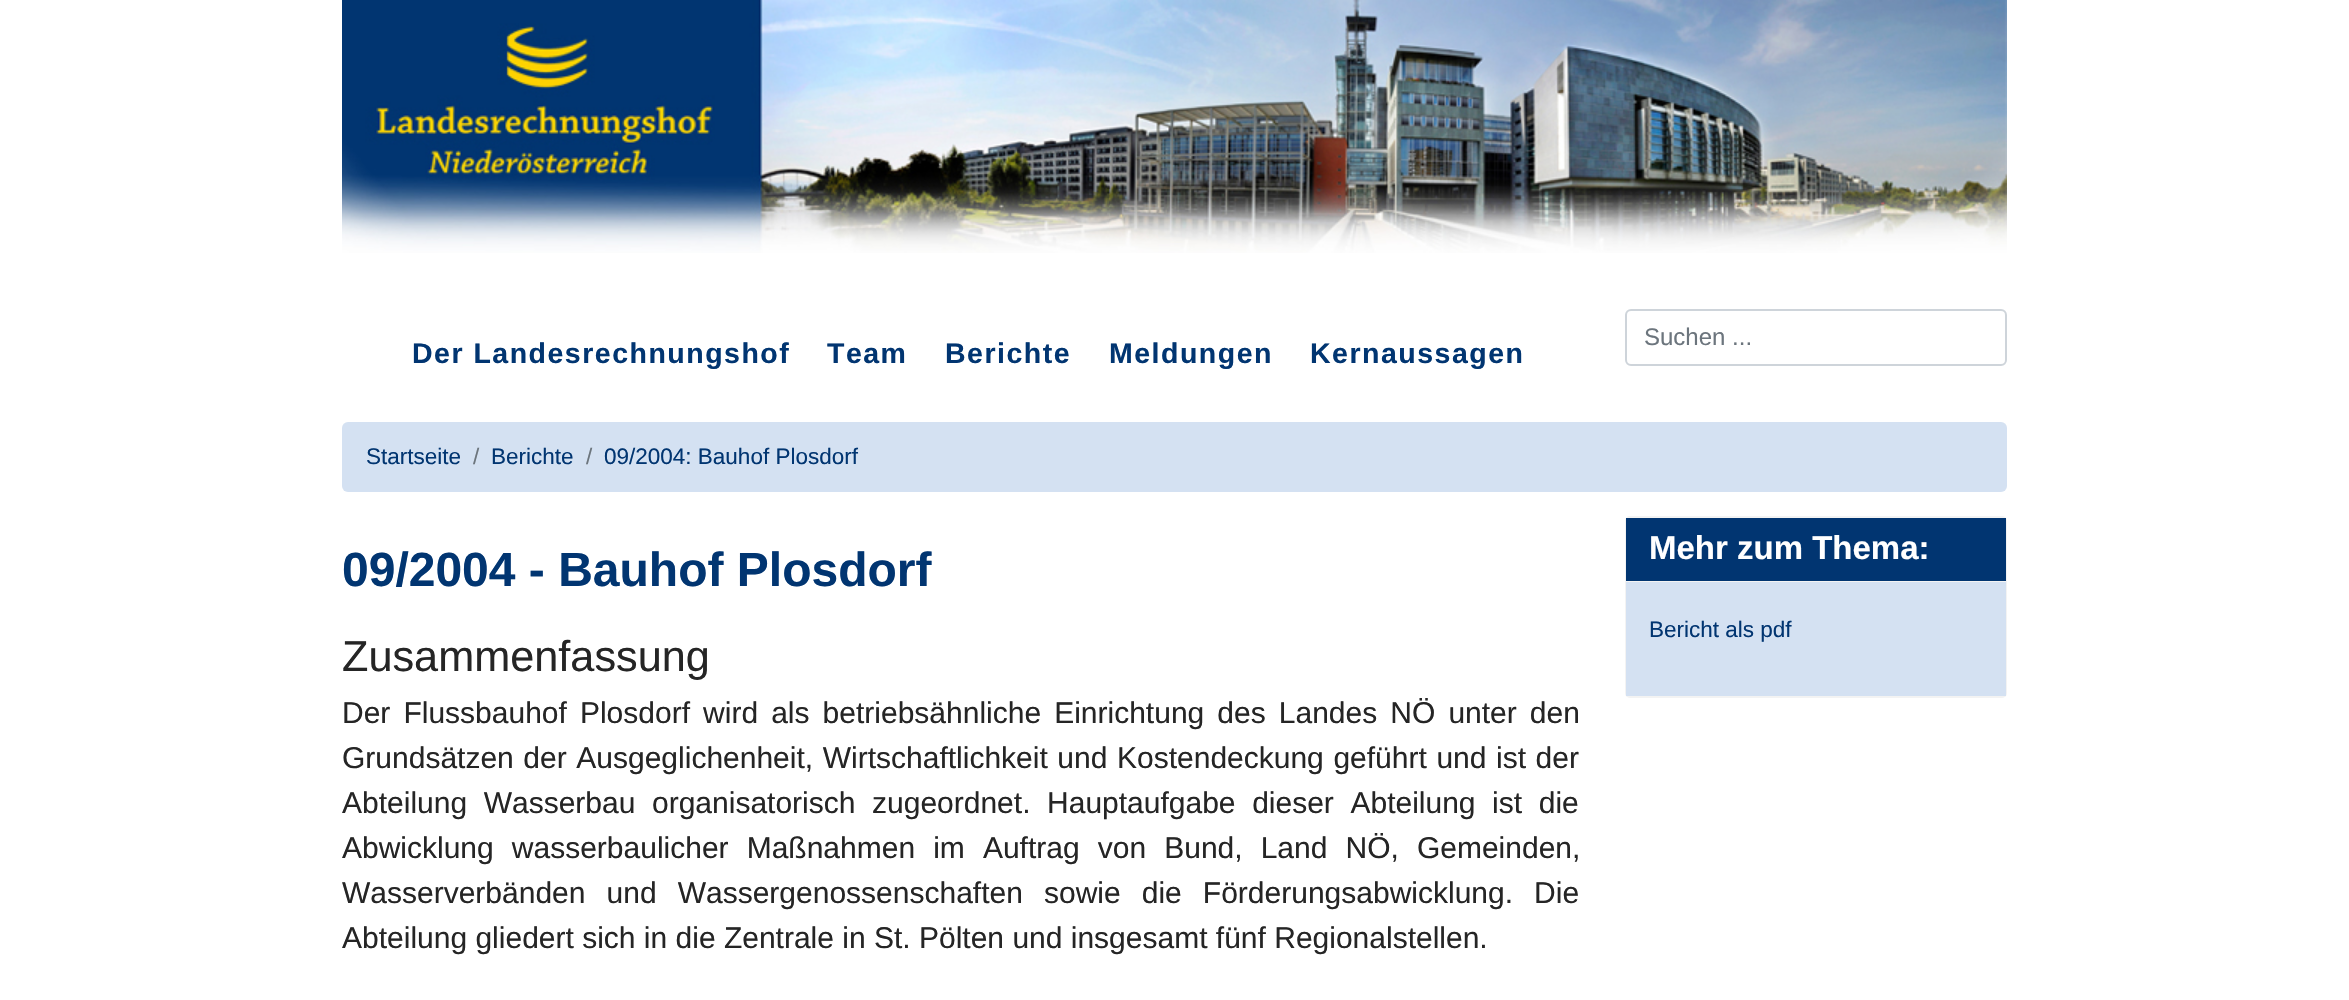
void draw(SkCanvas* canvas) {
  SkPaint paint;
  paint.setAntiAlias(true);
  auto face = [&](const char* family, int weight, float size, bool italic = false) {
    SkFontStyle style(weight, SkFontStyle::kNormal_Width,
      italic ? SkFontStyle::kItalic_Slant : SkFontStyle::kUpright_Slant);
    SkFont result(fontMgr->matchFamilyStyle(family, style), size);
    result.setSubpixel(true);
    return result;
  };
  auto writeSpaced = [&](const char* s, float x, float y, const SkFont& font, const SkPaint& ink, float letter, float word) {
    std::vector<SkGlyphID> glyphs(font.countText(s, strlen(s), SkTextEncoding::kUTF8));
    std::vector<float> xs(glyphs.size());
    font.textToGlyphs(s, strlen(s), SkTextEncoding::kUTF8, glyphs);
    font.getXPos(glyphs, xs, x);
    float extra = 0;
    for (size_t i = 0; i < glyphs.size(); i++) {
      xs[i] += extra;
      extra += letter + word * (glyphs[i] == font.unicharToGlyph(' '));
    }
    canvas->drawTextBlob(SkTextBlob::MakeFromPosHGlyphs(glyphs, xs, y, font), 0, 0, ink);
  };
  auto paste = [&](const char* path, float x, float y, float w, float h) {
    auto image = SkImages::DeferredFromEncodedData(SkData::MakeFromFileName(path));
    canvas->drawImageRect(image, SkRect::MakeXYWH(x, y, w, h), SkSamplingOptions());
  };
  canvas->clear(0xffffffff);
  paste("img/1.png", 342, 0, 1665, 253);
  paint.setStroke(true);
  paint.setStrokeWidth(2);
  paint.setColor(0xffced4da);
  canvas->drawRoundRect(SkRect::MakeXYWH(1626, 310, 380, 55), 5, 5, paint);
  paint.setStroke(false);
  paint.setColor(0xffd4e1f2);
  canvas->drawRoundRect(SkRect::MakeXYWH(342, 422, 1665, 70), 6, 6, paint);
  paint.setStroke(true);
  paint.setColor(0xfff3f3f3);
  canvas->drawRoundRect(SkRect::MakeXYWH(1626, 517, 380, 180), 4, 4, paint);
  paint.setStroke(false);
  {
    const struct { float x, y, w, h; SkColor color; } items[] = {
      {1626, 518, 380, 63, 0xff013571},
      {1626, 581, 380, 1, 0xfff3f3f3},
      {1626, 582, 380, 114, 0xffd4e1f2},
    };
    for (auto [x, y, w, h, color] : items) {
      paint.setColor(color);
      canvas->drawRect(SkRect::MakeXYWH(x, y, w, h), paint);
    }
  }
  auto f0 = face("Liberation Sans", 400, 24);
  paint.setColor(0xff6c757d);
  canvas->drawString("Suchen ...", 1644, 345, f0, paint);
  auto f1 = face("Liberation Sans", 700, 28.5f);
  paint.setColor(0xff013571);
  {
    const struct { const char* s; float x, y; } items[] = {
      {"Der Landesrechnungshof", 412, 363},
      {"Team", 827, 363},
      {"Berichte", 945, 363},
      {"Meldungen", 1109, 363},
      {"Kernaussagen", 1310, 363},
    };
    for (auto [s, x, y] : items) {
      writeSpaced(s, x, y, f1, paint, 1.5f, 0);
    }
  }
  auto f2 = face("Liberation Sans", 400, 22.5f);
  canvas->drawString("Startseite", 366, 464, f2, paint);
  paint.setColor(0xff6c757d);
  canvas->drawString("/", 473, 464, f2, paint);
  paint.setColor(0xff013571);
  canvas->drawString("Berichte", 491, 464, f2, paint);
  paint.setColor(0xff6c757d);
  canvas->drawString("/", 586, 464, f2, paint);
  paint.setColor(0xff013571);
  canvas->drawString("09/2004: Bauhof Plosdorf", 604, 464, f2, paint);
  auto f3 = face("Liberation Sans", 700, 48);
  canvas->drawString("09/2004 - Bauhof Plosdorf", 342, 586, f3, paint);
  auto f4 = face("Liberation Sans", 400, 43.25f);
  paint.setColor(0xff252525);
  canvas->drawString("Zusammenfassung", 342, 671, f4, paint);
  auto f5 = face("Liberation Sans", 400, 30);
  writeSpaced("Der Flussbauhof Plosdorf wird als betriebsähnliche Einrichtung des Landes NÖ unter den", 342, 723, f5, paint, 0, 4.75f);
  writeSpaced("Grundsätzen der Ausgeglichenheit, Wirtschaftlichkeit und Kostendeckung geführt und ist der", 342, 768, f5, paint, 0, 1.25f);
  writeSpaced("Abteilung Wasserbau organisatorisch zugeordnet. Hauptaufgabe dieser Abteilung ist die", 342, 813, f5, paint, 0, 8.25f);
  writeSpaced("Abwicklung wasserbaulicher Maßnahmen im Auftrag von Bund, Land NÖ, Gemeinden,", 342, 858, f5, paint, 0, 9.75f);
  writeSpaced("Wasserverbänden und Wassergenossenschaften sowie die Förderungsabwicklung. Die", 342, 903, f5, paint, 0, 12.75f);
  canvas->drawString("Abteilung gliedert sich in die Zentrale in St. Pölten und insgesamt fünf Regionalstellen.", 342, 948, f5, paint);
  auto f6 = face("Liberation Sans", 700, 33);
  paint.setColor(0xffffffff);
  canvas->drawString("Mehr zum Thema:", 1649, 559, f6, paint);
  paint.setColor(0xff013571);
  canvas->drawString("Bericht als pdf", 1649, 637, f2, paint);
}
